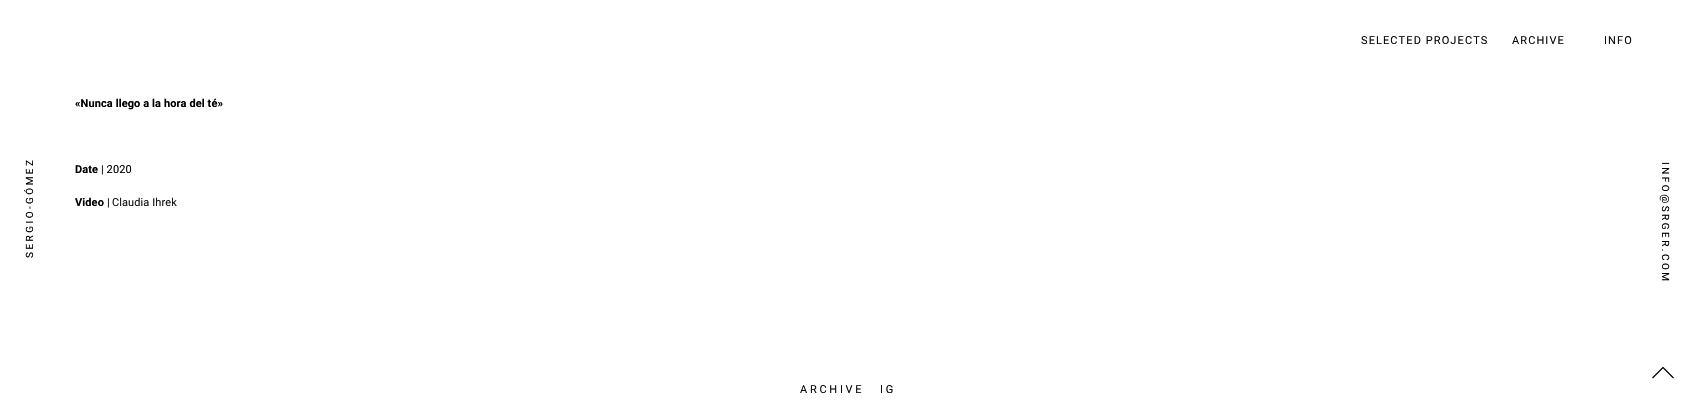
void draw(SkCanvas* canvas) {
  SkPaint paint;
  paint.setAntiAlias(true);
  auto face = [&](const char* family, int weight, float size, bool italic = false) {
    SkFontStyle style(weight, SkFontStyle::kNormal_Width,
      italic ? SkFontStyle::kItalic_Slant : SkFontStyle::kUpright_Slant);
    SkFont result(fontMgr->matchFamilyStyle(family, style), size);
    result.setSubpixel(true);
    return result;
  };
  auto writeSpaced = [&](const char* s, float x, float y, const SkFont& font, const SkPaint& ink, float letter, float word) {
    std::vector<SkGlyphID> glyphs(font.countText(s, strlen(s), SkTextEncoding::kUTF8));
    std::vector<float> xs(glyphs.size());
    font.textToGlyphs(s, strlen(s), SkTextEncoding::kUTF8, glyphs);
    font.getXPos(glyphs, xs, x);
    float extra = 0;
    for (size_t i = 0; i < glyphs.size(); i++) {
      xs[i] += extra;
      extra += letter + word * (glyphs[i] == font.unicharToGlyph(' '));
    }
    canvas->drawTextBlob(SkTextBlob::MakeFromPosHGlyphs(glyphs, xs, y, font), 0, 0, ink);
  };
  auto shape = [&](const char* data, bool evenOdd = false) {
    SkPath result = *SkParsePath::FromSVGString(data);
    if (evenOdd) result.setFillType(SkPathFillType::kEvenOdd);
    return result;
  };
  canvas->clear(0xffffffff);
  paint.setStroke(true);
  paint.setStrokeWidth(1.2f);
  paint.setStrokeJoin(SkPaint::kBevel_Join);
  paint.setColor(0xff000000);
  canvas->drawPath(shape("M1652.5 378L1663 367.5L1673.5 378"), paint);
  auto f0 = face("Roboto", 400, 11);
  paint.setStroke(false);
  paint.setColor(0xff0a0a0a);
  {
    const struct { const char* s; float x, y; } items[] = {
      {"SELECTED PROJECTS", 1361, 44},
      {"ARCHIVE", 1512, 44},
      {"INFO", 1604, 44},
    };
    for (auto [s, x, y] : items) {
      writeSpaced(s, x, y, f0, paint, 1.1f, 0);
    }
  }
  auto f1 = face("Roboto", 400, 10);
  paint.setColor(0xff000000);
  canvas->save();
  canvas->rotate(-90, 33, 204);
  canvas->drawString("G Ó M E Z", 33, 204, f1, paint);
  canvas->restore();
  canvas->save();
  canvas->rotate(-90, 33, 209);
  canvas->drawString("-", 33, 209, f1, paint);
  canvas->restore();
  canvas->save();
  canvas->rotate(-90, 33, 258);
  canvas->drawString("S E R G I O", 33, 258, f1, paint);
  canvas->restore();
  auto f2 = face("Roboto", 700, 11);
  writeSpaced("«Nunca llego a la hora del té»", 75, 107, f2, paint, 0.1f, 0);
  writeSpaced("Date", 75, 173, f2, paint, 0.1f, 0);
  writeSpaced("| 2020", 101, 173, f0, paint, 0.1f, 0);
  writeSpaced("Video", 75, 206, f2, paint, 0.1f, 0);
  writeSpaced("|", 107, 206, f0, paint, 0.1f, 0);
  paint.setColor(0xff151515);
  writeSpaced("Claudia Ihrek", 112, 206, f0, paint, 0.1f, 0);
  paint.setColor(0xff000000);
  canvas->save();
  canvas->rotate(90, 1662, 162);
  canvas->drawString("I N F O @ S R G E R . C O M", 1662, 162, f1, paint);
  canvas->restore();
  paint.setColor(0xff0a0a0a);
  canvas->drawString("A R C H I V E", 800, 393, f0, paint);
  canvas->drawString("I G", 880, 393, f0, paint);
}
